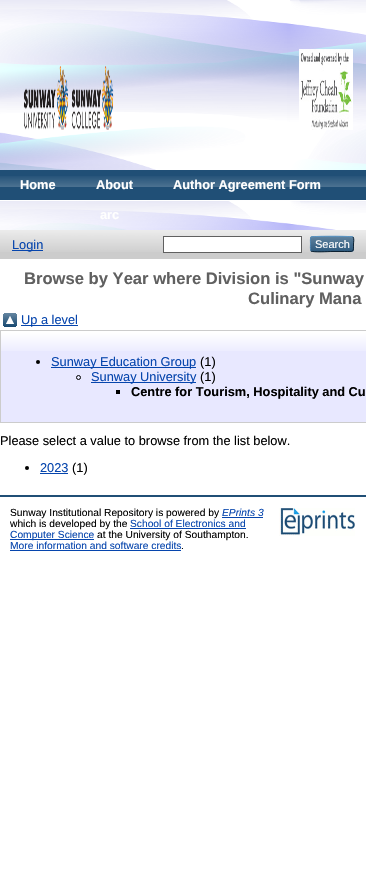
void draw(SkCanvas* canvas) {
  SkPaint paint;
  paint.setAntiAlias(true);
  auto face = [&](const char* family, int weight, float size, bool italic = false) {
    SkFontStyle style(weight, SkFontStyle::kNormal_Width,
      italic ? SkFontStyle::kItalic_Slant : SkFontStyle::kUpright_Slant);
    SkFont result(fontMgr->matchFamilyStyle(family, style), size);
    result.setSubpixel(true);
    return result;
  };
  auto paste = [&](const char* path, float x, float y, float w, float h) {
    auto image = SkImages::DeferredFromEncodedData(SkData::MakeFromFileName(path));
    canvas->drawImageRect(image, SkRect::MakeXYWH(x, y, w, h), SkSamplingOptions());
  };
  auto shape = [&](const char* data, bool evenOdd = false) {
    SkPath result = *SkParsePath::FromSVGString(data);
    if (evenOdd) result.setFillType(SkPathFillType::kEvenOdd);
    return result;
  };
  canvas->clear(0xffffffff);
  paste("img/1.png", 0, 0, 366, 230);
  paste("img/2.png", 23, 49, 330, 81);
  paint.setColor(0xff204f76);
  canvas->drawRect(SkRect::MakeXYWH(0, 170, 366, 30), paint);
  paste("img/3.png", 0, 176, 366, 11);
  paint.setColor(0xffffffff);
  canvas->drawRect(SkRect::MakeXYWH(0, 200, 366, 1), paint);
  paint.setColor(0xffcccccc);
  canvas->drawRect(SkRect::MakeXYWH(0, 230, 366, 29), paint);
  paste("img/4.png", 0, 230, 366, 22);
  paint.setColor(0xff0645ad);
  canvas->drawRect(SkRect::MakeXYWH(12, 250, 31, 1), paint);
  paint.setColor(0xffffffff);
  canvas->drawRect(SkRect::MakeXYWH(163.5f, 236.5f, 138, 16), paint);
  paint.setStroke(true);
  paint.setStrokeWidth(1);
  paint.setColor(0xff606060);
  canvas->drawRect(SkRect::MakeXYWH(163.5f, 236.5f, 138, 16), paint);
  paint.setStroke(false);
  paint.setColor(0xff1f4f76);
  canvas->drawRoundRect(SkRect::MakeXYWH(310, 236, 44, 16), 3, 3, paint);
  paste("img/5.png", 310, 236, 44, 16);
  paint.setStroke(true);
  paint.setColor(0xff5b97c7);
  canvas->drawPath(shape("M311 237C312.5 236 351.5 236 353 237"), paint);
  paint.setColor(0xff0d2131);
  canvas->drawPath(shape("M353 237C354.5 239 353.5 242 353.5 244C353.5 252.5 354 251.5 344.5 251.5H332C329 251.5 313 252.5 311 251"), paint);
  paint.setColor(0xff5287b3);
  canvas->drawPath(shape("M311 251C310 249.5 310.5 245.5 310.5 244C310.5 242.5 310 238.5 311 237"), paint);
  paste("img/6.png", 3, 313, 14, 14);
  paint.setStroke(false);
  paint.setColor(0xff0645ad);
  canvas->drawRect(SkRect::MakeXYWH(21, 325, 57, 1), paint);
  paint.setColor(0xffe8e8ff);
  canvas->drawRect(SkRect::MakeXYWH(1, 332, 365, 90), paint);
  paste("img/7.png", 1, 331, 365, 20);
  paint.setStroke(true);
  paint.setColor(0xffcccccc);
  canvas->drawRect(SkRect::MakeXYWH(0.5f, 330.5f, 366, 92), paint);
  paint.setStroke(false);
  paint.setColor(0xff000000);
  canvas->drawCircle(38, 362, 2, paint);
  paint.setColor(0xff0645ad);
  canvas->drawRect(SkRect::MakeXYWH(51, 367, 145, 1), paint);
  paint.setStroke(true);
  paint.setColor(0xff000000);
  canvas->drawCircle(78.5f, 377.5f, 2, paint);
  paint.setStroke(false);
  paint.setColor(0xff0645ad);
  canvas->drawRect(SkRect::MakeXYWH(91, 382, 105, 1), paint);
  paint.setColor(0xff000000);
  canvas->drawRect(SkRect::MakeXYWH(116, 390, 4, 4), paint);
  canvas->drawCircle(27, 468, 2, paint);
  {
    const struct { float x, y, w, h; SkColor color; } items[] = {
      {40, 473, 28, 1, 0xff0645ad},
      {0, 495, 366, 2, 0xff204f76},
      {222, 517, 41, 1, 0xff0645ad},
      {130, 528, 116, 1, 0xff0645ad},
      {10, 539, 84, 1, 0xff0645ad},
      {10, 550, 171, 1, 0xff0645ad},
    };
    for (auto [x, y, w, h, color] : items) {
      paint.setColor(color);
      canvas->drawRect(SkRect::MakeXYWH(x, y, w, h), paint);
    }
  }
  paste("img/8.png", 279, 508, 76, 28);
  auto f0 = face("Liberation Sans", 700, 12.8f);
  paint.setColor(0xffffffff);
  {
    const struct { const char* s; float x, y; } items[] = {
      {"Home", 20, 189},
      {"About", 96, 189},
      {"Author Agreement Form", 173, 189},
      {"arc", 100, 219},
    };
    for (auto [s, x, y] : items) {
      canvas->drawString(s, x, y, f0, paint);
    }
  }
  auto f1 = face("Liberation Sans", 400, 12.8f);
  paint.setColor(0xff0645ad);
  canvas->drawString("Login", 12, 249, f1, paint);
  auto f2 = face("Liberation Sans", 400, 11);
  paint.setColor(0xffffffff);
  canvas->drawString("Search", 315, 248, f2, paint);
  auto f3 = face("Liberation Sans", 700, 16.6f);
  paint.setColor(0xff606060);
  canvas->drawString("Browse by Year where Division is \"Sunway", 24, 284, f3, paint);
  canvas->drawString("Culinary Mana", 248, 304, f3, paint);
  paint.setColor(0xff0645ad);
  canvas->drawString("Up a level", 21, 324, f1, paint);
  canvas->drawString("Sunway Education Group", 51, 366, f1, paint);
  paint.setColor(0xff000000);
  canvas->drawString("(1)", 200, 366, f1, paint);
  paint.setColor(0xff0645ad);
  canvas->drawString("Sunway University", 91, 381, f1, paint);
  paint.setColor(0xff000000);
  canvas->drawString("(1)", 200, 381, f1, paint);
  canvas->drawString("Centre for Tourism, Hospitality and Cu", 131, 396, f0, paint);
  canvas->drawString("Please select a value to browse from the list below.", 0, 445, f1, paint);
  paint.setColor(0xff0645ad);
  canvas->drawString("2023", 40, 472, f1, paint);
  paint.setColor(0xff000000);
  canvas->drawString("(1)", 72, 472, f1, paint);
  auto f4 = face("Liberation Sans", 400, 10.25f);
  canvas->drawString("Sunway Institutional Repository is powered by", 10, 516, f4, paint);
  auto f5 = face("Liberation Sans", 400, 10.25f, true);
  paint.setColor(0xff0645ad);
  canvas->drawString("EPrints 3", 222, 516, f5, paint);
  paint.setColor(0xff000000);
  canvas->drawString("which is developed by the", 10, 527, f4, paint);
  paint.setColor(0xff0645ad);
  canvas->drawString("School of Electronics and", 130, 527, f4, paint);
  canvas->drawString("Computer Science", 10, 538, f4, paint);
  paint.setColor(0xff000000);
  canvas->drawString("at the University of Southampton.", 97, 538, f4, paint);
  paint.setColor(0xff0645ad);
  canvas->drawString("More information and software credits", 10, 549, f4, paint);
  paint.setColor(0xff000000);
  canvas->drawString(".", 181, 549, f4, paint);
}
